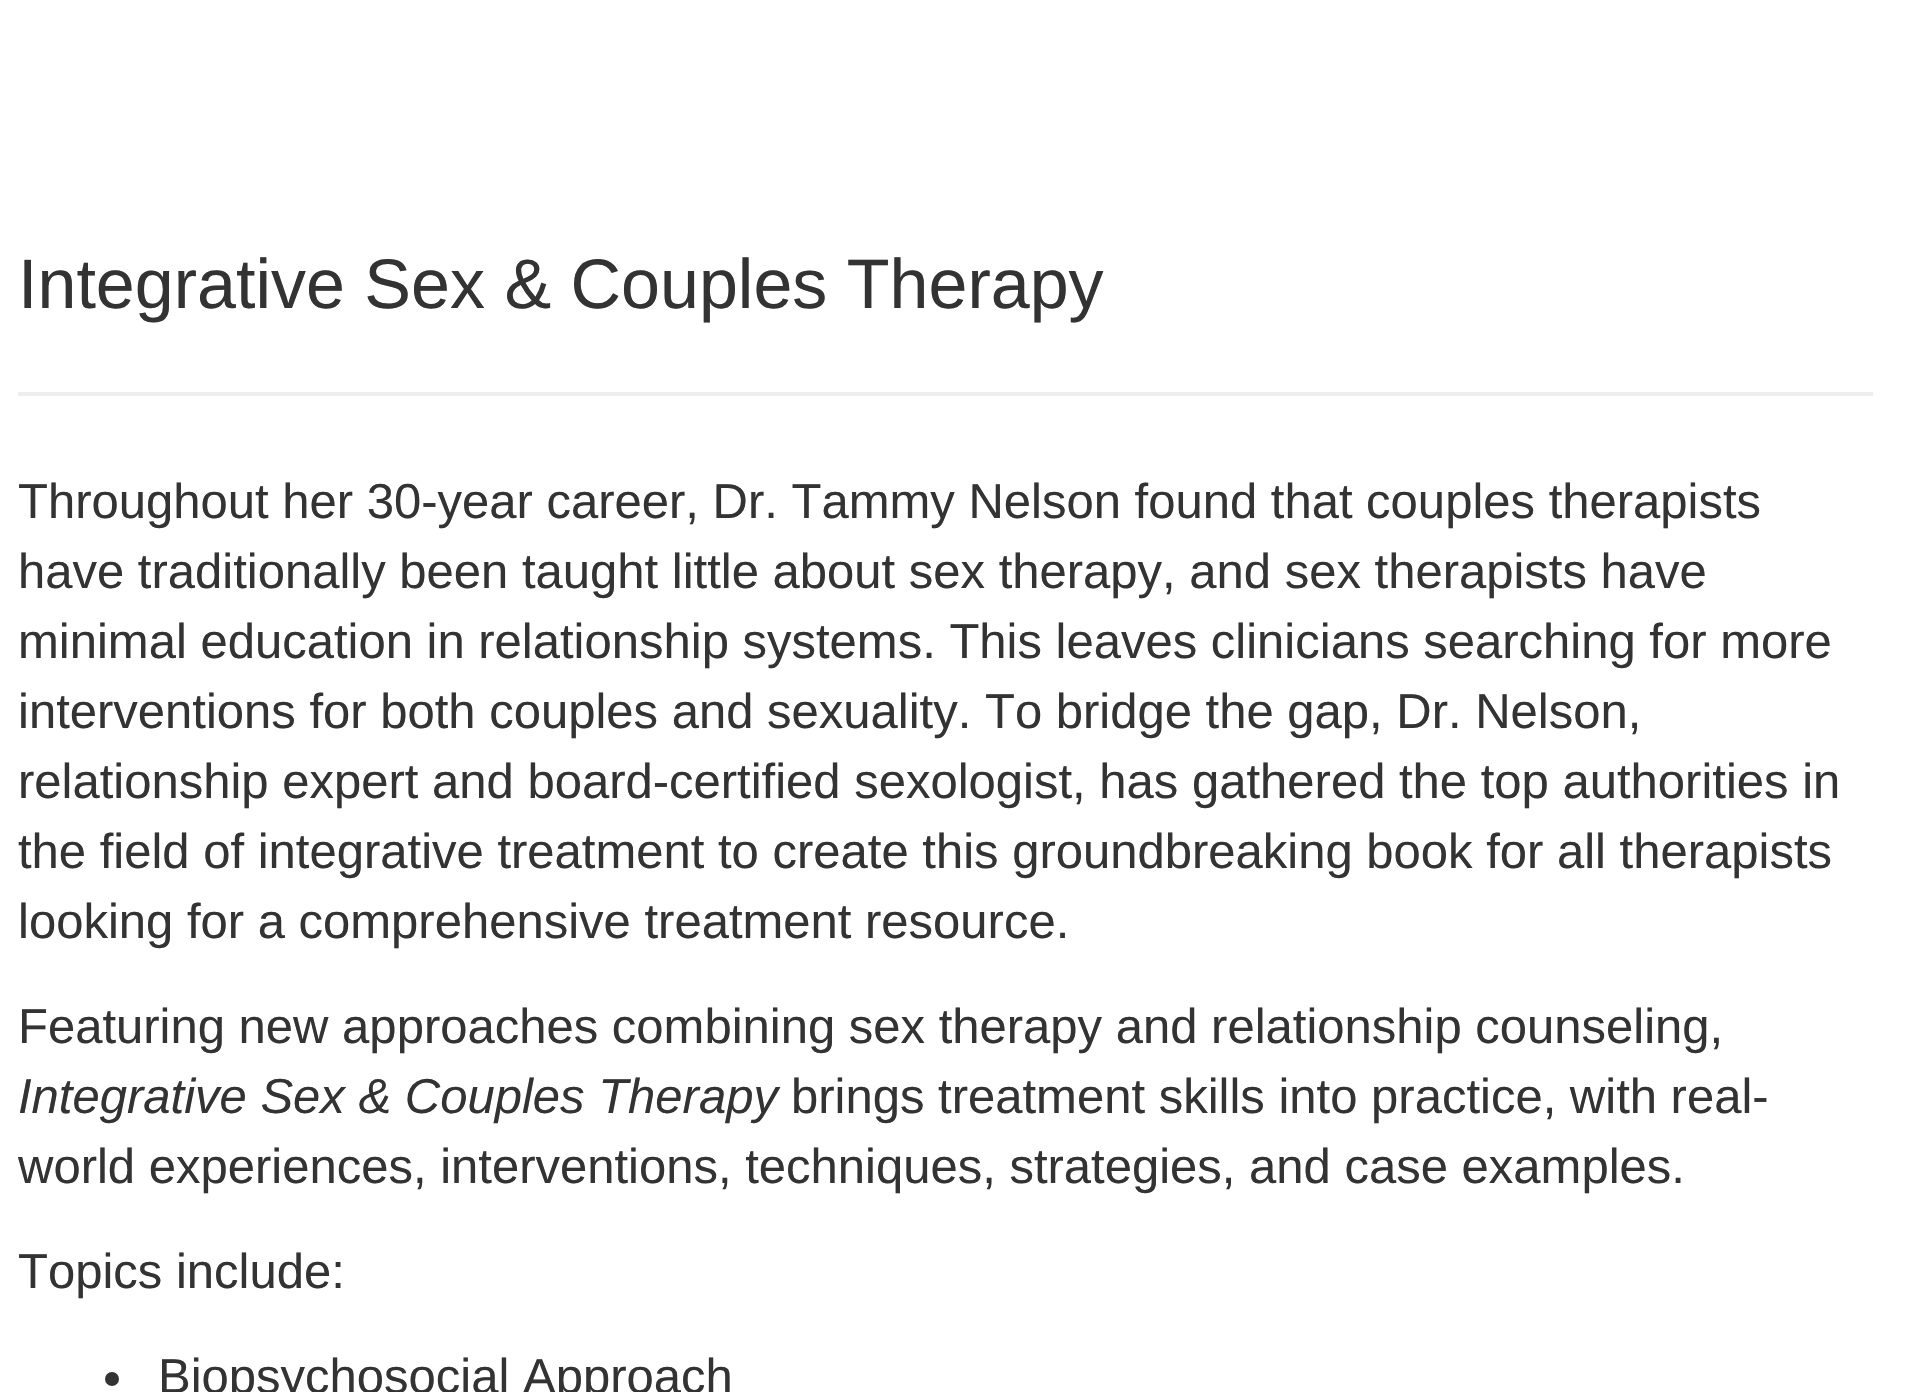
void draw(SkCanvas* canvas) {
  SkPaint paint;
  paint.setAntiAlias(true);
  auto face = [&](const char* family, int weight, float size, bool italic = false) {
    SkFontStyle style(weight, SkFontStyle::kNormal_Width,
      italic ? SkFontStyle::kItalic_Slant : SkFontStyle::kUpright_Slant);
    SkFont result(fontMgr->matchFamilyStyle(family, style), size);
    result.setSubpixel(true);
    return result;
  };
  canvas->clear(0xffffffff);
  paint.setColor(0xffeeeeee);
  canvas->drawRect(SkRect::MakeXYWH(18, 392, 1855, 4), paint);
  paint.setColor(0xff333333);
  canvas->drawCircle(112, 1379, 7, paint);
  auto f0 = face("Liberation Sans", 400, 70);
  canvas->drawString("Integrative Sex & Couples Therapy", 18, 308, f0, paint);
  auto f1 = face("Liberation Sans", 400, 49);
  {
    const struct { const char* s; float x, y; } items[] = {
      {"Throughout her 30-year career, Dr. Tammy Nelson found that couples therapists", 18, 518},
      {"have traditionally been taught little about sex therapy, and sex therapists have", 18, 588},
      {"minimal education in relationship systems. This leaves clinicians searching for more", 18, 658},
      {"interventions for both couples and sexuality. To bridge the gap, Dr. Nelson,", 18, 728},
      {"relationship expert and board-certified sexologist, has gathered the top authorities in", 18, 798},
      {"the field of integrative treatment to create this groundbreaking book for all therapists", 18, 868},
      {"looking for a comprehensive treatment resource.", 18, 938},
      {"Featuring new approaches combining sex therapy and relationship counseling,", 18, 1043},
    };
    for (auto [s, x, y] : items) {
      canvas->drawString(s, x, y, f1, paint);
    }
  }
  auto f2 = face("Liberation Sans", 400, 49, true);
  canvas->drawString("Integrative Sex & Couples Therapy", 18, 1113, f2, paint);
  {
    const struct { const char* s; float x, y; } items[] = {
      {"brings treatment skills into practice, with real-", 791, 1113},
      {"world experiences, interventions, techniques, strategies, and case examples.", 18, 1183},
      {"Topics include:", 18, 1288},
      {"Biopsychosocial Approach", 158, 1393},
    };
    for (auto [s, x, y] : items) {
      canvas->drawString(s, x, y, f1, paint);
    }
  }
}
